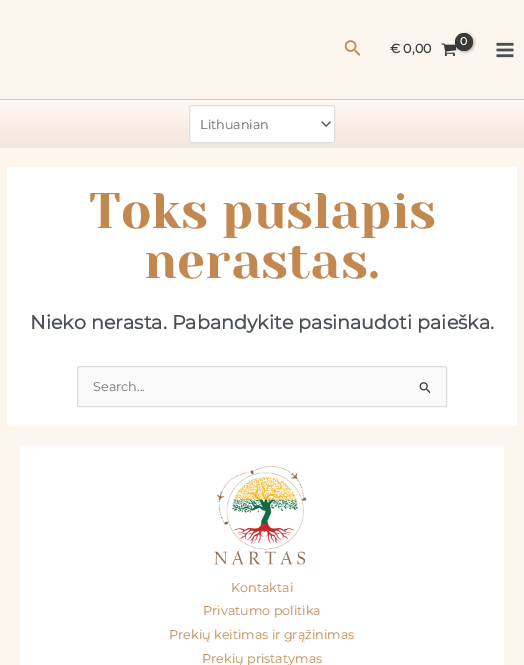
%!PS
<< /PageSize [524 665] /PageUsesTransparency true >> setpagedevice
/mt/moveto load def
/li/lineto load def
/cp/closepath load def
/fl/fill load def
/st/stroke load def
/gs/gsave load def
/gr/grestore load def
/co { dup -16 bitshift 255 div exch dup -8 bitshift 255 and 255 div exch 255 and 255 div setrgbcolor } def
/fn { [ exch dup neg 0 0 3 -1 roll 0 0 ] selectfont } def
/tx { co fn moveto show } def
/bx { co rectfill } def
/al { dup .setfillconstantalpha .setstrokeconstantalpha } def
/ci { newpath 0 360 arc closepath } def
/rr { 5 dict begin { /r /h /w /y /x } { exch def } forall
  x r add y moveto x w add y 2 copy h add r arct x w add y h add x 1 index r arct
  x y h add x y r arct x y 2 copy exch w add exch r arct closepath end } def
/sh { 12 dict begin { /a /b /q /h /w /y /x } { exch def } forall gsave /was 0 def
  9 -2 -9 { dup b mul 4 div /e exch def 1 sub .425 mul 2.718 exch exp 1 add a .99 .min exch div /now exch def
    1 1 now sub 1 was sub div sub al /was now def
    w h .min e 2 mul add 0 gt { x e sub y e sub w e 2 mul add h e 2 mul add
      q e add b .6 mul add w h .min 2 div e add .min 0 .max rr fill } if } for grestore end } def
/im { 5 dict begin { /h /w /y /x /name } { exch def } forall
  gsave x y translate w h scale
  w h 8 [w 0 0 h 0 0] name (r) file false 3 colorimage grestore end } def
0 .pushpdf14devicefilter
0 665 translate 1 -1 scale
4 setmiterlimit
0 0 524 665 16#FCF6EF bx
0 99 524 1 16#CBCBCB bx
(media/1.raw) 344 40 16 16 im
(media/2.raw) 441 43 16 13 im
16#000000 co
456 34 18 18 9 1.5 .3 sh
16#3A3A3A co
464 42 9 ci fl
(media/3.raw) 496 42 18 16 im
gs 0 100 mt 524 100 li 524 148 li 0 148 li cp clip newpath
<< /ShadingType 2 /ColorSpace /DeviceRGB /Coords [262 100 262 148] /Extend [true true] /Function << /FunctionType 2 /Domain [0 1] /C0 [1 .973 .949] /C1 [.949 .906 .863] /N 1 >> >> shfill gr
16#FFFFFF co
189 105 146 38 3 rr fl
(media/4.raw) 321 121 10 6 im
16#DDDDDD co
189.5 105.5 145 37 2.5 rr st
7 167 510 259 16#FFFFFF bx
16#FAFAFA co
77.5 366.5 369 40 1.5 rr gs fl gr
16#DDDDDD co
st
(media/5.raw) 419 382 11 12 im
20 446 484 219 16#FFFFFF bx
(media/6.raw) 214 466 93 99 im
(0) 460 45 /Montserrat-Bold 11 16#FFFFFF tx
(€ 0,00) 390 53 /Montserrat-Bold 12.75 16#3A3A3A tx
(Lithuanian) 200 129 /Montserrat-Thin 12.75 16#666666 tx
(Toks puslapis) 89 228 /YesevaOne-Regular 50 16#C2884F tx
(nerastas.) 144 278 /YesevaOne-Regular 50 16#C2884F tx
(Nieko nerasta. Pabandykite pasinaudoti paieška.) 30 329 /Montserrat-Bold 19.15 16#4B4F58 tx
(Search...) 93 391 /Montserrat-Thin 12.75 16#757575 tx
(Kontaktai) 231 592 /Montserrat-Thin 12.75 16#C2884F tx
(Privatumo politika) 203 615 /Montserrat-Thin 12.75 16#C2884F tx
(Prekių keitimas ir grąžinimas) 169 639 /Montserrat-Thin 12.75 16#C2884F tx
(Prekių pristatymas) 202 663 /Montserrat-Thin 12.75 16#C2884F tx
.poppdf14devicefilter showpage
